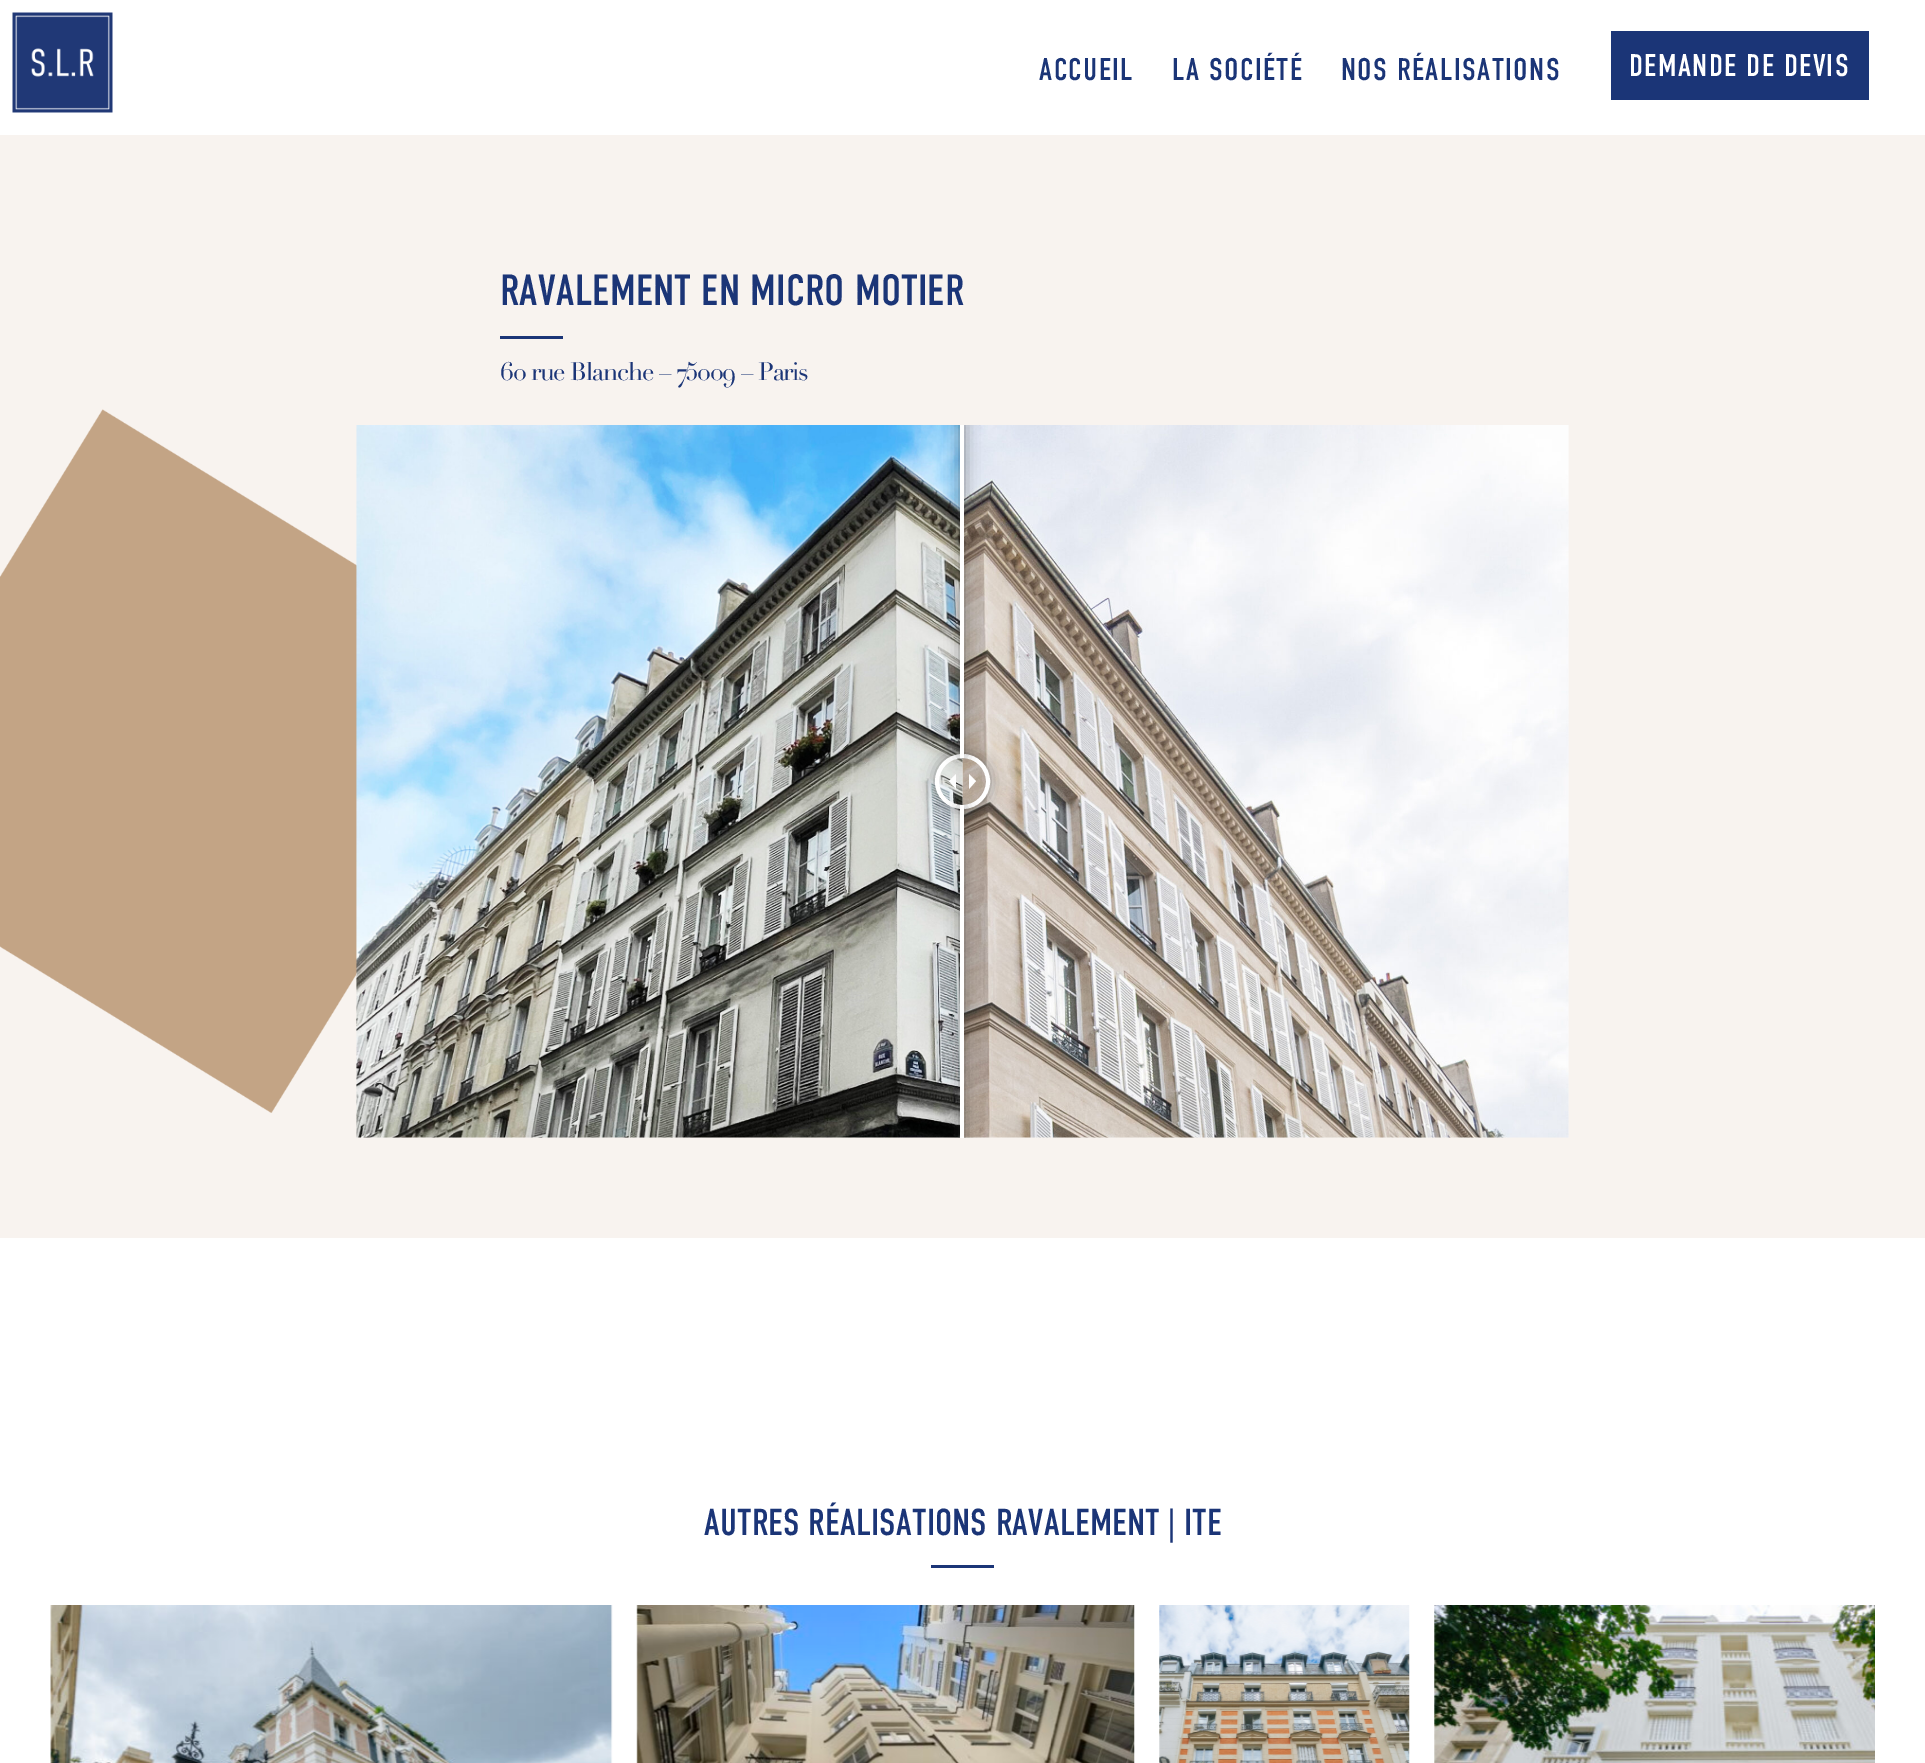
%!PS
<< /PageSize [1925 1763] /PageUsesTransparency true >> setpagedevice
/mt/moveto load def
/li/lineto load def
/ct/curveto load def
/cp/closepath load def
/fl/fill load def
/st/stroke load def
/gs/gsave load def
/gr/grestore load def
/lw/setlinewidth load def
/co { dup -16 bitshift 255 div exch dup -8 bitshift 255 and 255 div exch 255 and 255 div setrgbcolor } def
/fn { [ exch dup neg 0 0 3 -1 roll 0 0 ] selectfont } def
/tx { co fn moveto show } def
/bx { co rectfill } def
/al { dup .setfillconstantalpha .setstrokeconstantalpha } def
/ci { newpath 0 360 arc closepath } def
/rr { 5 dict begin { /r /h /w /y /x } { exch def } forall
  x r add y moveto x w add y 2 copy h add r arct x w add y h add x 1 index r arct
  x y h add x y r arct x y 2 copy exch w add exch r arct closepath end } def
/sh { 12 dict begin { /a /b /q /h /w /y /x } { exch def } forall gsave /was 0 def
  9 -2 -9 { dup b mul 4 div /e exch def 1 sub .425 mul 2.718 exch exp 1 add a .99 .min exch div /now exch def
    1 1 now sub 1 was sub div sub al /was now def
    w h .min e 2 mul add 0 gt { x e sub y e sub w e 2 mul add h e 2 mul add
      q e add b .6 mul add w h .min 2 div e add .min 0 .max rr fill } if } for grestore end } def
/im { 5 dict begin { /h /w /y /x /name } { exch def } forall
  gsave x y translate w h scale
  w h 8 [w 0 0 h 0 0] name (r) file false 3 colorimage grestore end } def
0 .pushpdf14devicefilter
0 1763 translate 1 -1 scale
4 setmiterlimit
0 0 1925 1763 16#FFFFFF bx
(media/1.raw) 12 12 101 101 im
1611 31 258 69 16#1B3577 bx
0 135 1925 1103 16#F8F3EF bx
(media/3.raw) 962 425 607 713 im
(media/4.raw) 0 409 357 704 im
(media/2.raw) 356 425 607 713 im
gs
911 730 mt 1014 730 li 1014 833 li 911 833 li cp 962.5 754 mt 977.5 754 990 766.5 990 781.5 ct 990 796.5 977.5 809 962.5 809 ct 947.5 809 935 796.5 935 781.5 ct 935 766.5 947.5 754 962.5 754 ct cp eoclip newpath
16#333333 co
935 754 55 55 27.5 7.5 .5 sh
gr
16#FFFFFF co
4 lw
962.5 781.5 25.5 ci st
956 774 mt 956 789 li 949 781 li cp 969 789 mt 969 774 li 976 781 li cp fl
gs
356 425 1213 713 rectclip
16#333333 co
960 -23 4 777 0 7.5 .5 sh
gr
960 754 mt 960 758 li 964 758 li 964 -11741 li 964 754 li cp fl
960 425 4 329 16#FFFFFF bx
gs
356 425 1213 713 rectclip
16#333333 co
960 809 4 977 0 7.5 .5 sh
gr
960 805 mt 960 809 li 964 809 li 964 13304 li 964 805 li cp fl
960 809 4 329 16#FFFFFF bx
500 336 63 3 16#1B3577 bx
931 1565 63 3 16#1B3577 bx
(media/5.raw) 50 1605 563 158 im
(media/6.raw) 636 1605 499 158 im
(media/7.raw) 1159 1605 251 158 im
(media/8.raw) 1434 1605 441 158 im
/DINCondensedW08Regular-Regular 31.25 fn
1039 80 mt 1.25 0 (ACCUEIL) ashow
1172 80 mt 1.25 0 (LA SOCIÉTÉ) ashow
1341 80 mt 1.25 0 (NOS RÉALISATIONS) ashow
16#FFFFFF co
1629 76 mt 1.25 0 (DEMANDE DE DEVIS) ashow
(RAVALEMENT EN MICRO MOTIER) 500 305 /DINCondensedW08Regular-Regular 43.75 16#1B3577 tx
/Didot-Regular 25 fn
500 380 mt -1.25 0 (60 rue Blanche – 75009 – Paris) ashow
(AUTRES RÉALISATIONS RAVALEMENT | ITE) 704 1535 /DINCondensedW08Regular-Regular 37.5 16#1B3577 tx
.poppdf14devicefilter showpage
